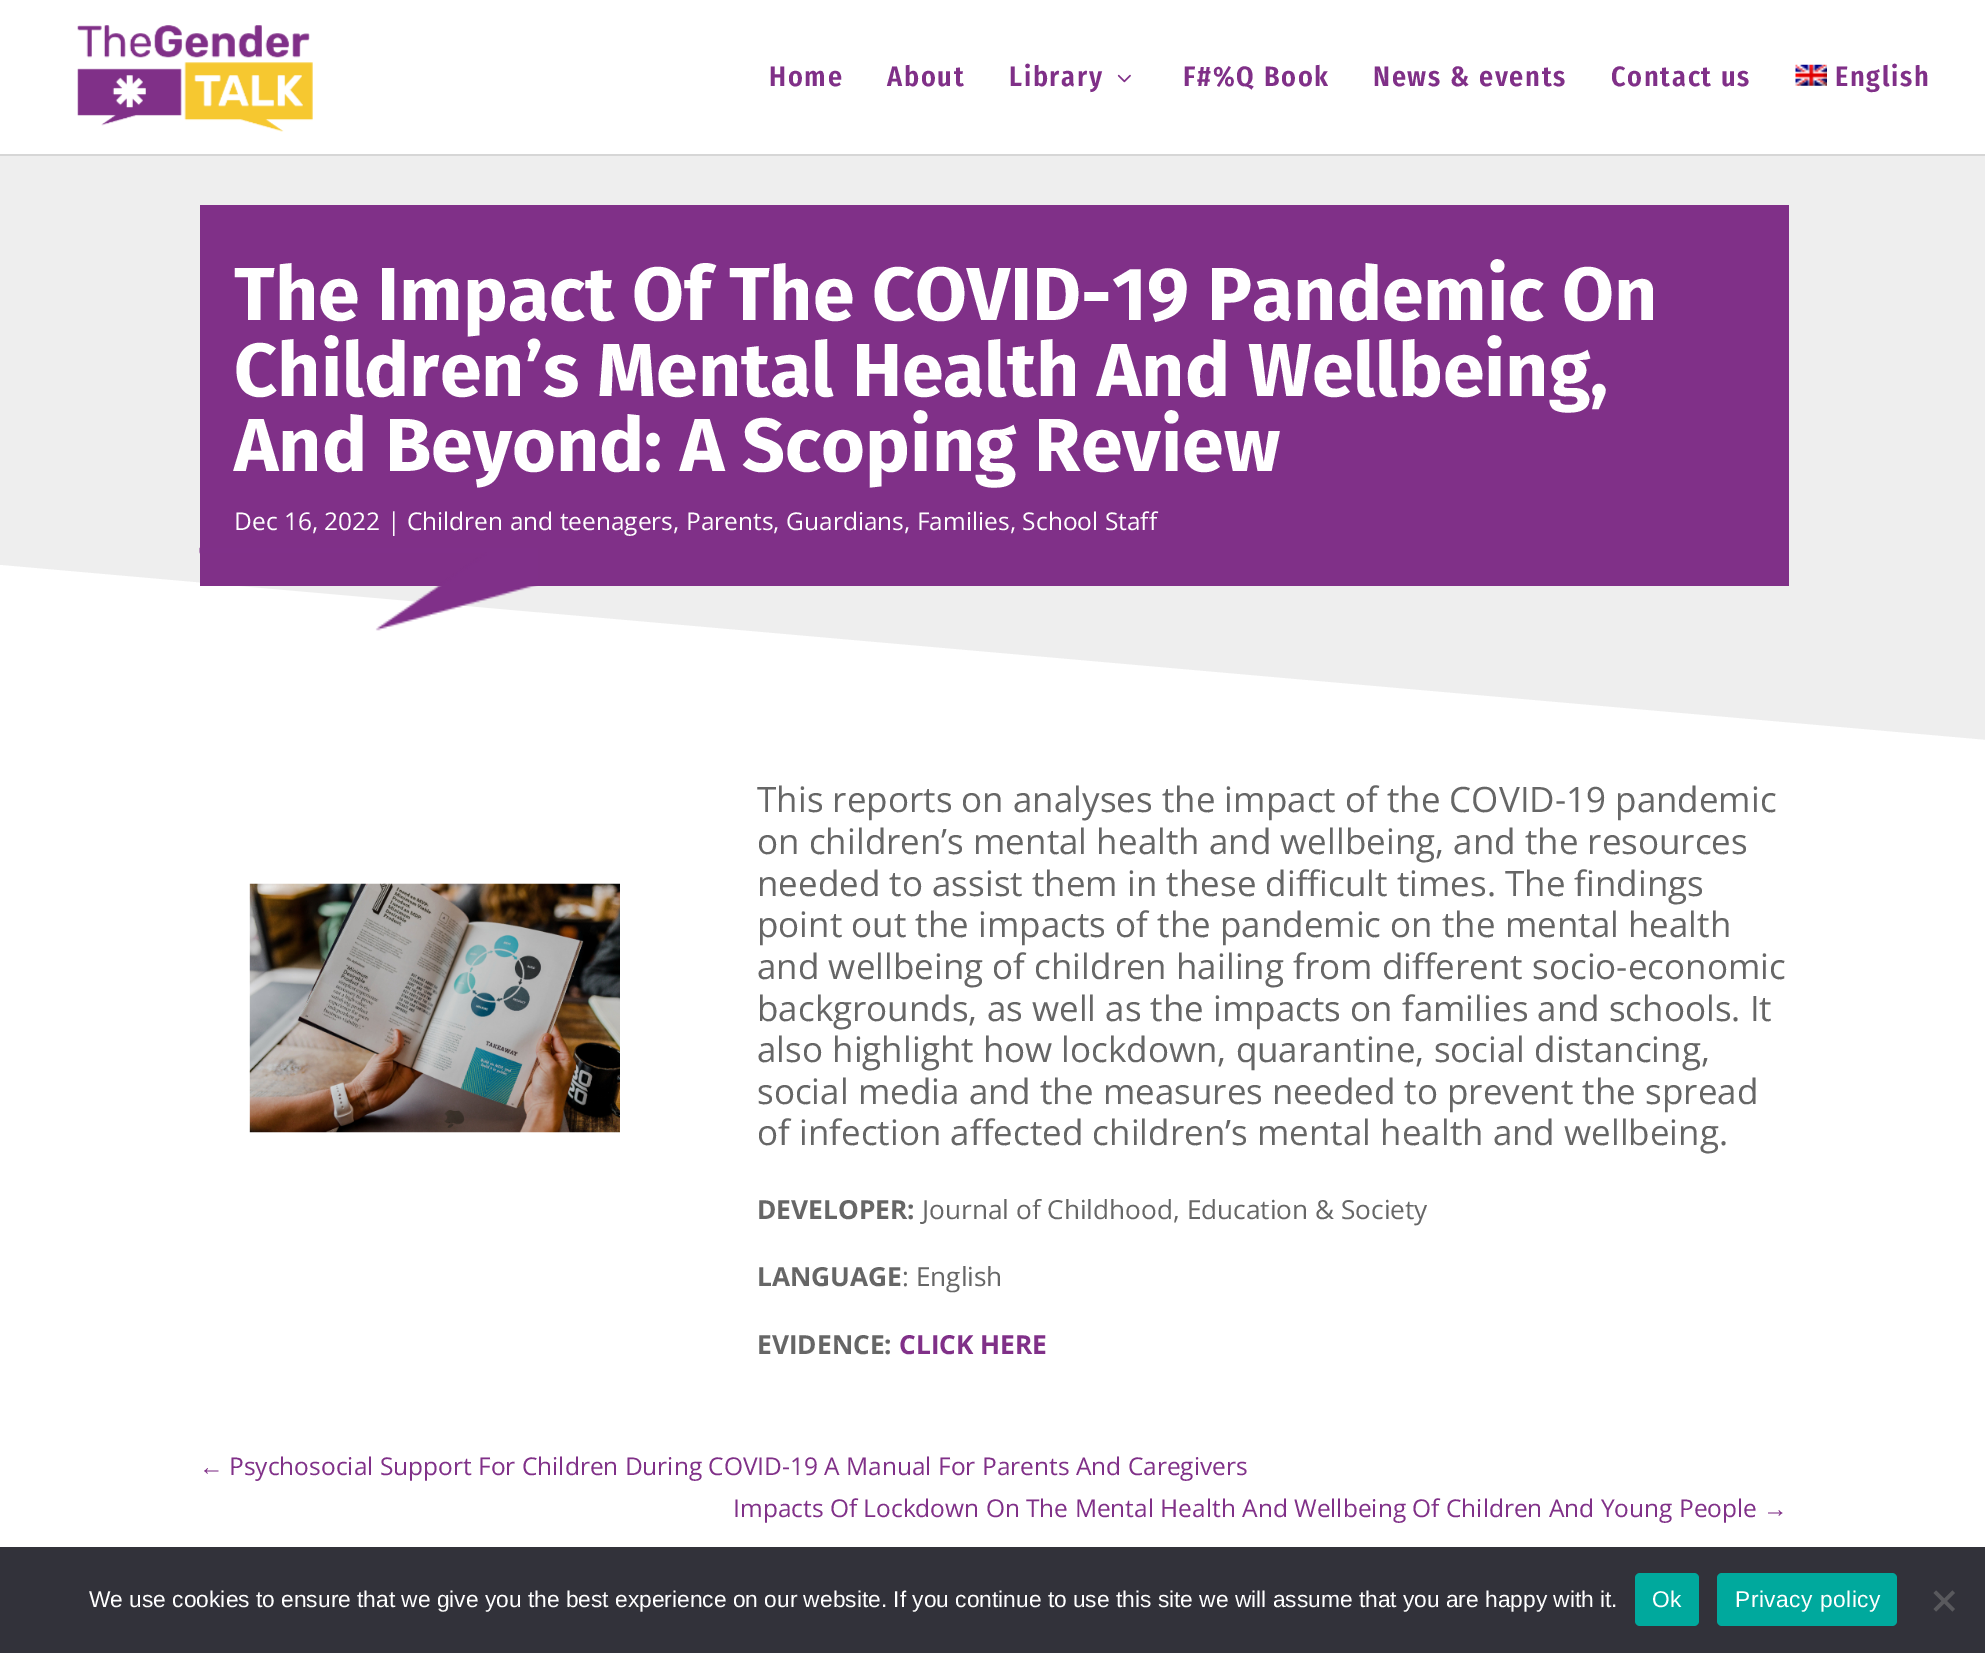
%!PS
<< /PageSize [1985 1653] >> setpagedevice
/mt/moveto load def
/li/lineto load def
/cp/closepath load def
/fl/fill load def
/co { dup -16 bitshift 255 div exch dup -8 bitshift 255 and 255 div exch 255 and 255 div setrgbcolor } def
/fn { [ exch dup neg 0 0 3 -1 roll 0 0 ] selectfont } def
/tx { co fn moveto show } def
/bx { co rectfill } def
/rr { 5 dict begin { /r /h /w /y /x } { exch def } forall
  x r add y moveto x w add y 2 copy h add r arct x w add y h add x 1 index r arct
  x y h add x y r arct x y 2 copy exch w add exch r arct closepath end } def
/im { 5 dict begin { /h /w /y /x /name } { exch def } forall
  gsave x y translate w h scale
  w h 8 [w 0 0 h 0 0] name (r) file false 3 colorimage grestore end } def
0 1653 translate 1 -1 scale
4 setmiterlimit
0 0 1985 1653 16#FFFFFF bx
0 154 1985 2 16#D6D6D6 bx
(media/1.raw) 77 25 236 107 im
(media/2.raw) 1117 74 14 9 im
(media/3.raw) 1795 64 32 22 im
0 156 1985 584 16#EEEEEE bx
16#FFFFFF co
0 565 mt 0 740 li 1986 740 li cp fl
200 205 1589 381 16#803088 bx
(media/4.raw) 199 547 339 84 im
(media/5.raw) 249 883 371 250 im
0 1547 1985 106 16#32323A bx
16#00A99D co
1635 1573 64 53 5 rr fl
1717 1573 180 53 5 rr fl
16#59595D co
1952.5 1590.5 mt 1955 1593 li 1936 1611.5 li 1933.5 1609 li cp fl
1933.5 1593 mt 1936 1590.5 li 1955 1609 li 1952.5 1611.5 li cp fl
/FiraSansCondensed-SemiBold 28 fn
16#803088 co
769 86 mt 1.75 0 (Home) ashow
887 86 mt 1.75 0 (About) ashow
1009 86 mt 1.75 0 (Library) ashow
1183 86 mt 1.75 0 (F#%Q Book) ashow
1373 86 mt 1.75 0 (News & events) ashow
1611 86 mt 1.75 0 (Contact us) ashow
1835 86 mt 1.75 0 (English) ashow
(The Impact Of The COVID-19 Pandemic On) 234 320 /FiraSans-Bold 75.25 16#FFFFFF tx
(Children’s Mental Health And Wellbeing,) 234 396 /FiraSans-Bold 75.25 16#FFFFFF tx
(And Beyond: A Scoping Review) 234 471 /FiraSans-Bold 75.25 16#FFFFFF tx
(Dec 16, 2022 | Children and teenagers, Parents, Guardians, Families, School Staff) 234 530 /OpenSans-Regular 24.5 16#FFFFFF tx
(This reports on analyses the impact of the COVID-19 pandemic) 757 812 /OpenSans-Regular 35 16#666666 tx
(on children’s mental health and wellbeing, and the resources) 757 854 /OpenSans-Regular 35 16#666666 tx
(needed to assist them in these difficult times. The findings) 757 896 /OpenSans-Regular 35 16#666666 tx
(point out the impacts of the pandemic on the mental health) 757 937 /OpenSans-Regular 35 16#666666 tx
(and wellbeing of children hailing from different socio-economic) 757 979 /OpenSans-Regular 35 16#666666 tx
(backgrounds, as well as the impacts on families and schools. It) 757 1021 /OpenSans-Regular 35 16#666666 tx
(also highlight how lockdown, quarantine, social distancing,) 757 1062 /OpenSans-Regular 35 16#666666 tx
(social media and the measures needed to prevent the spread) 757 1104 /OpenSans-Regular 35 16#666666 tx
(of infection affected children’s mental health and wellbeing.) 757 1145 /OpenSans-Regular 35 16#666666 tx
(DEVELOPER:) 757 1219 /OpenSans-Bold 26.25 16#666666 tx
(Journal of Childhood, Education & Society) 922 1219 /OpenSans-Regular 26.25 16#666666 tx
(LANGUAGE) 757 1286 /OpenSans-Bold 26.25 16#666666 tx
(: English) 902 1286 /OpenSans-Regular 26.25 16#666666 tx
(EVIDENCE:) 757 1354 /OpenSans-Bold 26.25 16#666666 tx
(CLICK HERE) 899 1354 /OpenSans-Bold 26.25 16#803088 tx
(←) 199 1475 /LiberationSans-Regular 24.5 16#803088 tx
(Psychosocial Support For Children During COVID-19 A Manual For Parents And Caregivers) 229 1475 /OpenSans-Regular 24.5 16#803088 tx
(Impacts Of Lockdown On The Mental Health And Wellbeing Of Children And Young People) 733 1517 /OpenSans-Regular 24.5 16#803088 tx
(→) 1763 1517 /LiberationSans-Regular 24.5 16#803088 tx
(We use cookies to ensure that we give you the best experience on our website. If you continue to use this site we will assume that you are happy with it.) 89 1607 /LiberationSans-Regular 22.75 16#FFFFFF tx
1652 1607 mt .5 0 (Ok) ashow
1735 1607 mt .5 0 (Privacy policy) ashow
showpage
